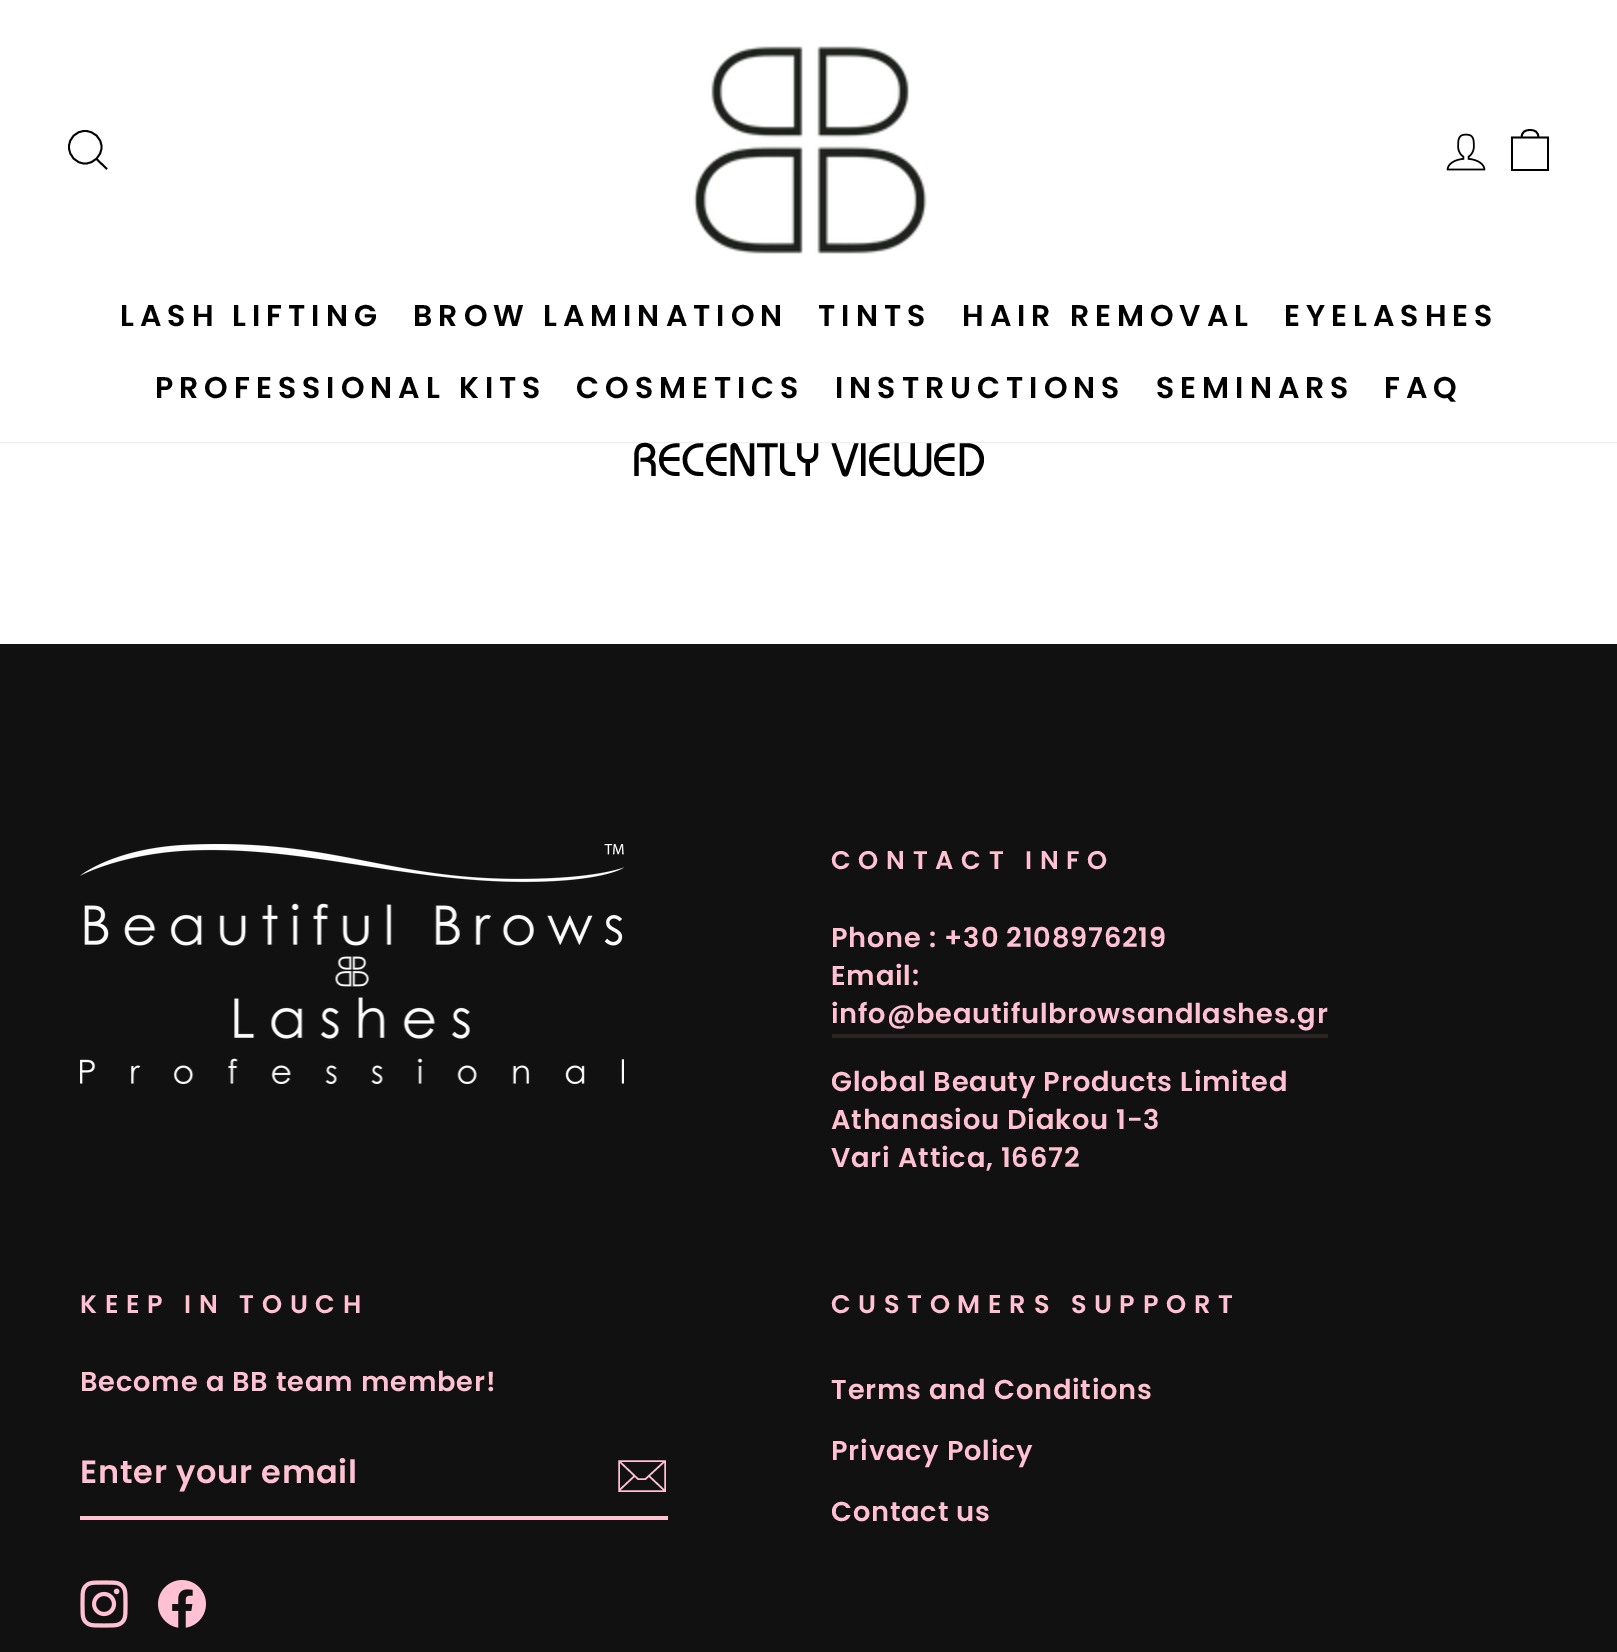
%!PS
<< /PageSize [1617 1652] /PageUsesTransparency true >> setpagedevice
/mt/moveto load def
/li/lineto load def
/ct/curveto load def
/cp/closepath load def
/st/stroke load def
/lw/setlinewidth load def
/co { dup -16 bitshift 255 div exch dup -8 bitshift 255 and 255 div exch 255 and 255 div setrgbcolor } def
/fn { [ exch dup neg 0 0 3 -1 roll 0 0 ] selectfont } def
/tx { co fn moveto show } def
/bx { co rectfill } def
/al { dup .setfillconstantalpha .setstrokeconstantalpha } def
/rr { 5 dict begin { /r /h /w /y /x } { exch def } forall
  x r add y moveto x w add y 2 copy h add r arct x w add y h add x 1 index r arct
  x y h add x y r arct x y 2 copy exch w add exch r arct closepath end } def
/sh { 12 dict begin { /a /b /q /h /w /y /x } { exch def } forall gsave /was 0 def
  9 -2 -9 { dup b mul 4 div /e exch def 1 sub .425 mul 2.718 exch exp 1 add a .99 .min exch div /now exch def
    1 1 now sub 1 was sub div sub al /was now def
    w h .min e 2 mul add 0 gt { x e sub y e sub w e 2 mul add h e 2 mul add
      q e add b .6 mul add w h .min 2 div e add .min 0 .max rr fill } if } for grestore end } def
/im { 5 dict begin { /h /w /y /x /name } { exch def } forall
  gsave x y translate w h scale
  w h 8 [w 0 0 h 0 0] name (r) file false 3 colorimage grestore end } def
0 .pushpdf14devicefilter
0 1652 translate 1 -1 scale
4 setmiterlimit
0 0 1617 1652 16#FFFFFF bx
16#000000 co
0 0 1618 442 0 1 .2 sh
0 0 1617 442 16#FFFFFF bx
16#000000 co
1.8 lw
101.5 147 mt 101.5 156 94 163.5 85 163.5 ct 76 163.5 69 156 69 147 ct 69 138 76 131 85 131 ct 94 131 101.5 138 101.5 147 ct cp 107 169 mt 96.5 159 li st
(media/1.raw) 693 46 234 208 im
(media/2.raw) 1446 133 40 38 im
1512 137.5 mt 1548 137.5 li 1548 170 li 1512 170 li cp 1521.5 138 mt 1521.5 131.5 1525.5 130 1530 130 ct 1534.5 130 1538.5 131.5 1538.5 138 ct st
0 644 1617 1008 16#111111 bx
(media/3.raw) 80 844 544 240 im
832 1034 496 4 16#292324 bx
80 1516 588 4 16#FFC1D3 bx
1.5 lw
665 1491 mt 619 1491 li 619 1461 li 665 1461 li cp 619 1461 mt 638 1479 li 645.5 1479 li 665 1461 li 634.5 1476 mt 619 1490.5 li 665 1491 mt 649 1476 li st
(media/4.raw) 80 1580 48 48 im
(media/5.raw) 158 1580 48 48 im
/Poppins-SemiBold 30 fn
16#000000 co
120 326 mt 6 0 (LASH LIFTING) ashow
413 326 mt 6 0 (BROW LAMINATION) ashow
818 326 mt 6 0 (TINTS) ashow
962 326 mt 6 0 (HAIR REMOVAL) ashow
1284 326 mt 6 0 (EYELASHES) ashow
155 398 mt 6 0 (PROFESSIONAL KITS) ashow
576 398 mt 6 0 (COSMETICS) ashow
835 398 mt 6 0 (INSTRUCTIONS) ashow
1156 398 mt 6 0 (SEMINARS) ashow
1384 398 mt 6 0 (FAQ) ashow
(RECENTLY VIEWED) 632 476 /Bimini-Regular 46.75 16#000000 tx
/Poppins-SemiBold 25.6 fn
16#FFC1D3 co
831 869 mt 7.7 0 (CONTACT INFO) ashow
/Poppins-SemiBold 27.25 fn
831 947 mt .8 0 (Phone : +30 2108976219) ashow
831 985 mt .8 0 (Email:) ashow
831 1023 mt .8 0 (info@beautifulbrowsandlashes.gr) ashow
831 1091 mt .8 0 (Global Beauty Products Limited) ashow
831 1129 mt .8 0 (Athanasiou Diakou 1-3) ashow
831 1167 mt .8 0 (Vari Attica, 16672) ashow
/Poppins-SemiBold 25.6 fn
80 1313 mt 7.7 0 (KEEP IN TOUCH) ashow
/Poppins-SemiBold 27.25 fn
80 1391 mt .8 0 (Become a BB team member!) ashow
/Poppins-SemiBold 32 fn
80 1483 mt .8 0 (Enter your email) ashow
/Poppins-SemiBold 25.6 fn
831 1313 mt 7.7 0 (CUSTOMERS SUPPORT) ashow
/Poppins-SemiBold 27.25 fn
831 1399 mt .8 0 (Terms and Conditions) ashow
831 1460 mt .8 0 (Privacy Policy) ashow
831 1521 mt .8 0 (Contact us) ashow
.poppdf14devicefilter showpage
